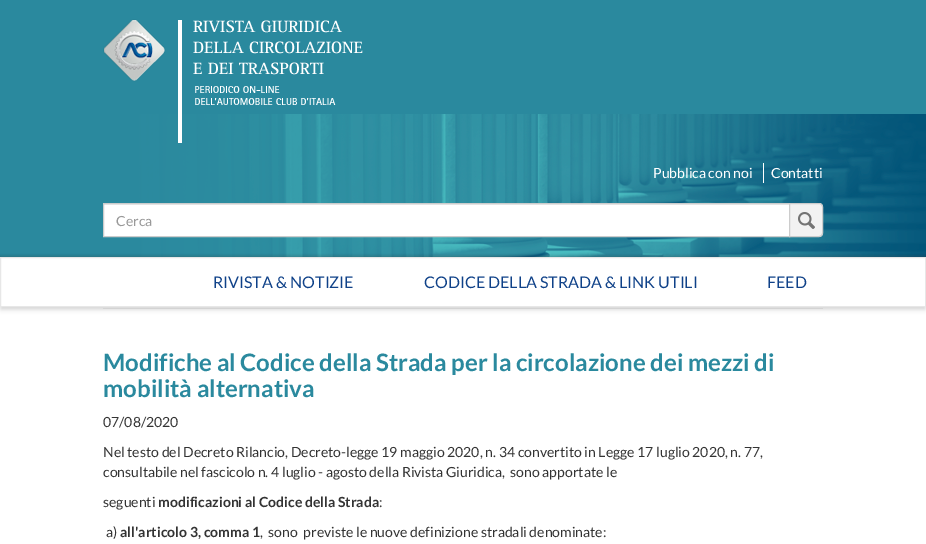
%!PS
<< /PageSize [926 544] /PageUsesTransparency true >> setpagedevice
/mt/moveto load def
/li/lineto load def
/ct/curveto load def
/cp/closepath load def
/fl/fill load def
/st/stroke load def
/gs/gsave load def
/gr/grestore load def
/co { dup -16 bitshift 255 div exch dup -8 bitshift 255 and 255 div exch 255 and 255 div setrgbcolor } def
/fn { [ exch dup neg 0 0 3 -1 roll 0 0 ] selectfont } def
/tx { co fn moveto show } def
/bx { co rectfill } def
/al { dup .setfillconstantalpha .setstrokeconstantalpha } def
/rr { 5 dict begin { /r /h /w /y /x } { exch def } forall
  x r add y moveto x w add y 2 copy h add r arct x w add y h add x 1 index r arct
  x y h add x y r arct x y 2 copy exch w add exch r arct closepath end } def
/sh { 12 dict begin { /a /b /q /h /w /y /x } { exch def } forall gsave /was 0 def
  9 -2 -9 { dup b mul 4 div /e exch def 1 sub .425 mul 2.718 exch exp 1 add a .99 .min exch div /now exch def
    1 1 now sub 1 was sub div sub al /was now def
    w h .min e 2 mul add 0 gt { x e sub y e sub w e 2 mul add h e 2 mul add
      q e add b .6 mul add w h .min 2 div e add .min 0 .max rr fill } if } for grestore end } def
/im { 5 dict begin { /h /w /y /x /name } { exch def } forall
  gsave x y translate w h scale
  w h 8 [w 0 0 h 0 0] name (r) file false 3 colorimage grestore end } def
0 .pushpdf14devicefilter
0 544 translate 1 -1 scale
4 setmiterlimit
0 0 926 544 16#FFFFFF bx
0 0 926 114 16#2A899E bx
(media/1.raw) 0 114 926 143 im
(media/2.raw) 103 19 260 124 im
763 163 1 20 16#FFFFFF bx
104 205 685 31 16#FFFFFF bx
104 204 685 1 16#ECECEC bx
16#CCCCCC co
103.5 203.5 686 33 rectstroke
16#F2F2F2 co
789 203 mt 819 203 li 821 203 823 205 823 207 ct 823 233 li 823 235 821 237 819 237 ct 789 237 li cp fl
(media/3.raw) 798 212 17 17 im
16#CCCCCC co
789.5 203.5 mt 819 203.5 li 821 203.5 822.5 205 822.5 207 ct 822.5 233 li 822.5 235 821 236.5 819 236.5 ct 789.5 236.5 li cp st
103 308 720 1 16#DFDFDF bx
gs
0 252 mt 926 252 li 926 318 li 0 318 li cp 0 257 mt 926 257 li 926 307 li 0 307 li cp eoclip newpath
16#CCCCCC co
1 261 924 48 0 2.5 1 sh
gr
16#E7E7E7 co
.5 257.5 925 49 rectstroke
(Pubblica con noi) 653 178 /Lato-Regular 14 16#FFFFFF tx
(Contatti) 771 178 /Lato-Regular 14 16#FFFFFF tx
(Cerca) 116 226 /Lato-Regular 14 16#999999 tx
(RIVISTA & NOTIZIE) 213 288 /Lato-Regular 16 16#0F4188 tx
(CODICE DELLA STRADA & LINK UTILI) 424 288 /Lato-Regular 16 16#0F4188 tx
(FEED) 767 288 /Lato-Regular 16 16#0F4188 tx
(Modifiche al Codice della Strada per la circolazione dei mezzi di) 103 371 /Lato-Bold 24 16#2A899E tx
(mobilità alternativa) 103 397 /Lato-Bold 24 16#2A899E tx
(07/08/2020) 103 427 /Lato-Regular 14 16#333333 tx
(Nel testo del Decreto Rilancio, Decreto-legge 19 maggio 2020, n. 34 convertito in Legge 17 luglio 2020, n. 77,) 103 457 /Lato-Regular 14 16#333333 tx
(consultabile nel fascicolo n. 4 luglio - agosto della Rivista Giuridica,  sono apportate le) 103 477 /Lato-Regular 14 16#333333 tx
(seguenti) 103 507 /Lato-Regular 14 16#333333 tx
(modificazioni al Codice della Strada) 158 507 /Lato-Bold 14 16#333333 tx
(:) 379 507 /Lato-Regular 14 16#333333 tx
(a\)) 106 537 /Lato-Regular 14 16#333333 tx
(all'articolo 3, comma 1) 120 537 /Lato-Bold 14 16#333333 tx
(,  sono  previste le nuove definizione stradali denominate:) 260 537 /Lato-Regular 14 16#333333 tx
.poppdf14devicefilter showpage
